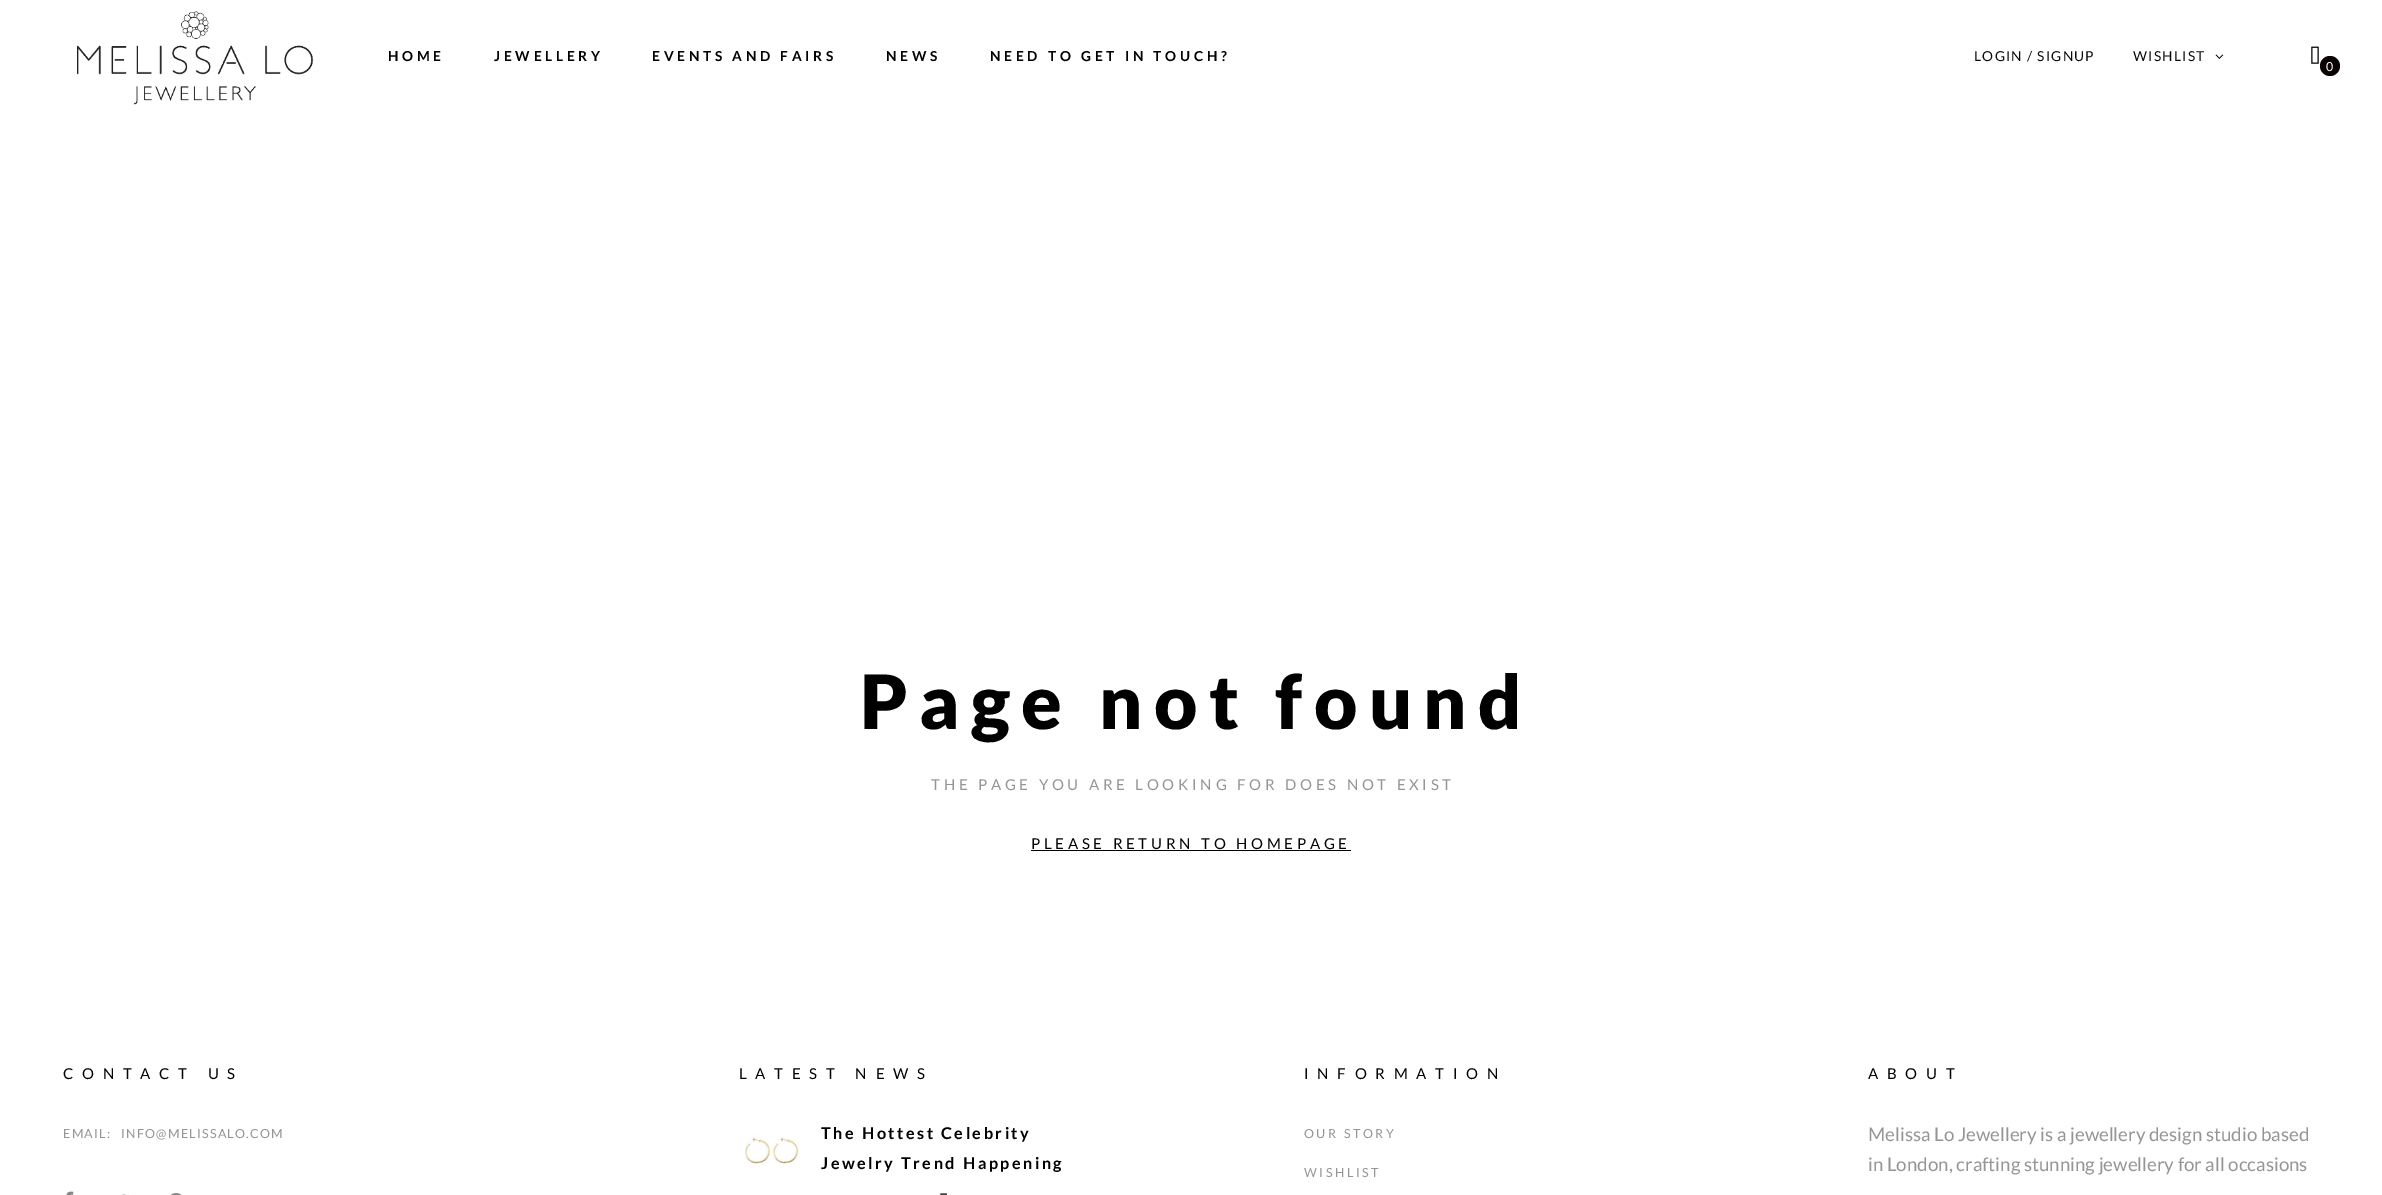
%!PS
<< /PageSize [2382 1195] >> setpagedevice
/mt/moveto load def
/fl/fill load def
/co { dup -16 bitshift 255 div exch dup -8 bitshift 255 and 255 div exch 255 and 255 div setrgbcolor } def
/fn { [ exch dup neg 0 0 3 -1 roll 0 0 ] selectfont } def
/tx { co fn moveto show } def
/bx { co rectfill } def
/ci { newpath 0 360 arc closepath } def
/im { 5 dict begin { /h /w /y /x /name } { exch def } forall
  gsave x y translate w h scale
  w h 8 [w 0 0 h 0 0] name (r) file false 3 colorimage grestore end } def
0 1195 translate 1 -1 scale
4 setmiterlimit
0 0 2382 1195 16#FFFFFF bx
(media/1.raw) 77 11 237 94 im
(media/2.raw) 2215 54 9 5 im
(media/3.raw) 2311 46 8 18 im
16#0A0101 co
2330 66 10 ci fl
1031 850 320 1 16#000000 bx
(media/4.raw) 66 1191 8 4 im
(media/5.raw) 122 1194 7 1 im
(media/6.raw) 170 1193 12 2 im
(media/7.raw) 745 1134 55 30 im
/Lato-Bold 13.75 fn
388 61 mt 3.75 0 (HOME) ashow
494 61 mt 3.75 0 (JEWELLERY) ashow
652 61 mt 3.75 0 (EVENTS AND FAIRS) ashow
886 61 mt 3.75 0 (NEWS) ashow
990 61 mt 3.75 0 (NEED TO GET IN TOUCH?) ashow
/Lato-Regular 13.75 fn
16#0A0A0A co
1974 61 mt 1.25 0 (LOGIN / SIGNUP) ashow
2133 61 mt 1.25 0 (WISHLIST) ashow
(0) 2326 71 /Lato-Regular 12.5 16#FFFFFF tx
/Lato-Black 75 fn
16#000000 co
860 729 mt 11.25 0 (Page not found) ashow
/Lato-Regular 15 fn
16#959595 co
931 790 mt 3.75 0 (THE PAGE YOU ARE LOOKING FOR DOES NOT EXIST) ashow
16#000000 co
1031 849 mt 3.75 0 (PLEASE RETURN TO HOMEPAGE) ashow
63 1079 mt 8.75 0 (CONTACT US) ashow
/Lato-Regular 12.5 fn
16#959595 co
63 1138 mt 1.25 0 (EMAIL:) ashow
121 1138 mt 1.25 0 (INFO@MELISSALO.COM) ashow
/Lato-Regular 15 fn
16#000000 co
739 1079 mt 8.75 0 (LATEST NEWS) ashow
/Lato-Bold 16.25 fn
821 1139 mt 2.5 0 (The Hottest Celebrity) ashow
821 1169 mt 2.5 0 (Jewelry Trend Happening) ashow
939 1199 mt 2.5 0 (–) ashow
/Lato-Regular 15 fn
1304 1079 mt 8.75 0 (INFORMATION) ashow
/Lato-Regular 12.5 fn
16#959595 co
1304 1138 mt 2.5 0 (OUR STORY) ashow
1304 1177 mt 2.5 0 (WISHLIST) ashow
/Lato-Regular 15 fn
16#000000 co
1868 1079 mt 8.75 0 (ABOUT) ashow
(Melissa Lo Jewellery is a jewellery design studio based) 1868 1141 /Lato-Regular 18.75 16#959595 tx
(in London, crafting stunning jewellery for all occasions) 1868 1171 /Lato-Regular 18.75 16#959595 tx
showpage
